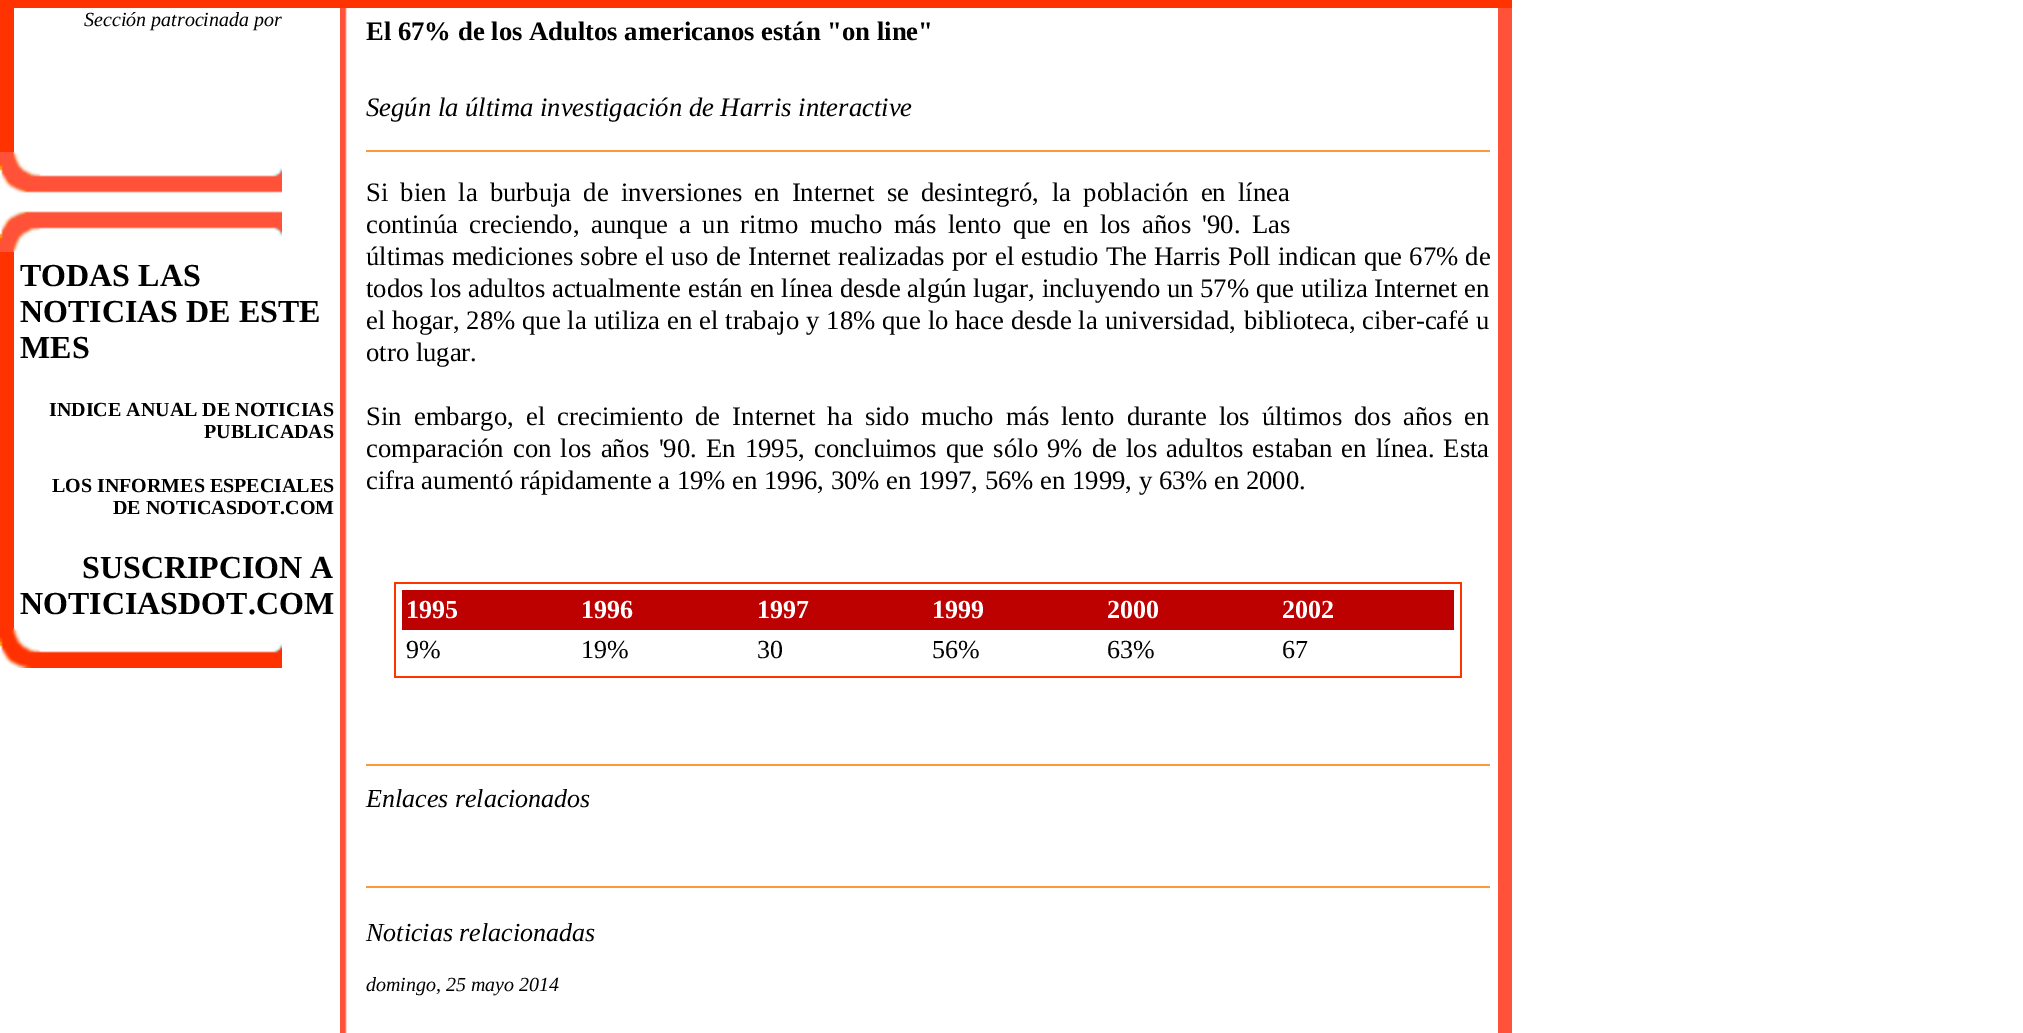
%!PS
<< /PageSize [2023 1033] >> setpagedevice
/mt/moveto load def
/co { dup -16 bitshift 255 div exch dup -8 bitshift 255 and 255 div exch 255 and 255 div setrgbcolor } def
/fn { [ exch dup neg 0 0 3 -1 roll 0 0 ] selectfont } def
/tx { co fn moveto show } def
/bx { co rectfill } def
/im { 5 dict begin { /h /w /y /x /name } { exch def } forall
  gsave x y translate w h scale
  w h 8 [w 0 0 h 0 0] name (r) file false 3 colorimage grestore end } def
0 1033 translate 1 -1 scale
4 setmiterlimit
0 0 2023 1033 16#FFFFFF bx
0 0 1512 8 16#FF3300 bx
0 8 14 144 16#FF3300 bx
(media/1.raw) 0 152 282 100 im
0 252 14 376 16#FF3300 bx
(media/2.raw) 0 628 282 40 im
(media/3.raw) 340 8 7 1025 im
366 150 1124 2 16#FF9933 bx
394 582 1068 2 16#FF3300 bx
1460 582 2 96 16#FF3300 bx
394 676 1068 2 16#FF3300 bx
394 582 2 96 16#FF3300 bx
402 590 1052 40 16#BD0000 bx
366 764 1124 2 16#FF9933 bx
366 886 1124 2 16#FF9933 bx
1498 8 14 1025 16#FF5239 bx
(Sección patrocinada por) 84 26 /LiberationSerif-Italic 20 16#000000 tx
(TODAS LAS) 20 286 /LiberationSerif-Bold 32 16#000000 tx
(NOTICIAS DE ESTE) 20 322 /LiberationSerif-Bold 32 16#000000 tx
(MES) 20 358 /LiberationSerif-Bold 32 16#000000 tx
(INDICE ANUAL DE NOTICIAS) 49 416 /LiberationSerif-Bold 20 16#000000 tx
(PUBLICADAS) 204 438 /LiberationSerif-Bold 20 16#000000 tx
(LOS INFORMES ESPECIALES) 52 492 /LiberationSerif-Bold 20 16#000000 tx
(DE NOTICASDOT.COM) 113 514 /LiberationSerif-Bold 20 16#000000 tx
(SUSCRIPCION A) 82 578 /LiberationSerif-Bold 32 16#000000 tx
(NOTICIASDOT.COM) 20 614 /LiberationSerif-Bold 32 16#000000 tx
(El 67% de los Adultos americanos están "on line") 366 40 /LiberationSerif-Bold 26.65 16#000000 tx
(Según la última investigación de Harris interactive) 366 116 /LiberationSerif-Italic 26.65 16#000000 tx
/LiberationSerif-Regular 26.65 fn
366 201 mt 5.5 0 32 (Si bien la burbuja de inversiones en Internet se desintegró,) widthshow
1052 201 mt 5.5 0 32 (la población en línea) widthshow
366 233 mt 4.75 0 32 (continúa creciendo, aunque a un ritmo mucho más lento que) widthshow
1063 233 mt 4.75 0 32 (en los años '90. Las) widthshow
366 265 mt .5 0 32 (últimas mediciones sobre el uso de Internet realizadas por) widthshow
995 265 mt .5 0 32 (el estudio The Harris Poll indican que 67% de) widthshow
(todos los adultos actualmente) 366 297 /LiberationSerif-Regular 26.65 16#000000 tx
688 297 mt .1 0 32 (están en línea desde algún lugar, incluyendo un 57% que utiliza Internet en) widthshow
(el) 366 329 /LiberationSerif-Regular 26.65 16#000000 tx
392 329 mt .25 0 32 (hogar, 28% que la utiliza en el trabajo y 18% que lo hace desde la universidad,) widthshow
(biblioteca, ciber-café u) 1244 329 /LiberationSerif-Regular 26.65 16#000000 tx
(otro lugar.) 366 361 /LiberationSerif-Regular 26.65 16#000000 tx
366 425 mt 5.5 0 32 (Sin embargo, el crecimiento de Internet ha sido mucho más lento durante los) widthshow
1262 425 mt 5.5 0 32 (últimos dos años en) widthshow
366 457 mt 2.5 0 32 (comparación con los años '90. En 1995, concluimos que sólo) widthshow
1047 457 mt 2.5 0 32 (9% de los adultos estaban en línea. Esta) widthshow
(cifra aumentó rápidamente a 19% en 1996, 30% en 1997, 56% en 1999, y 63% en 2000.) 366 489 /LiberationSerif-Regular 26.65 16#000000 tx
(1995) 406 618 /LiberationSerif-Bold 26 16#FFFFFF tx
(1996) 581 618 /LiberationSerif-Bold 26 16#FFFFFF tx
(1997) 757 618 /LiberationSerif-Bold 26 16#FFFFFF tx
(1999) 932 618 /LiberationSerif-Bold 26 16#FFFFFF tx
(2000) 1107 618 /LiberationSerif-Bold 26 16#FFFFFF tx
(2002) 1282 618 /LiberationSerif-Bold 26 16#FFFFFF tx
(9%) 406 658 /LiberationSerif-Regular 26 16#000000 tx
(19%) 581 658 /LiberationSerif-Regular 26 16#000000 tx
(30) 757 658 /LiberationSerif-Regular 26 16#000000 tx
(56%) 932 658 /LiberationSerif-Regular 26 16#000000 tx
(63%) 1107 658 /LiberationSerif-Regular 26 16#000000 tx
(67) 1282 658 /LiberationSerif-Regular 26 16#000000 tx
(Enlaces relacionados) 366 807 /LiberationSerif-Italic 26 16#000000 tx
(Noticias relacionadas) 366 941 /LiberationSerif-Italic 26 16#000000 tx
(domingo, 25 mayo 2014) 366 991 /LiberationSerif-Italic 20 16#000000 tx
showpage
